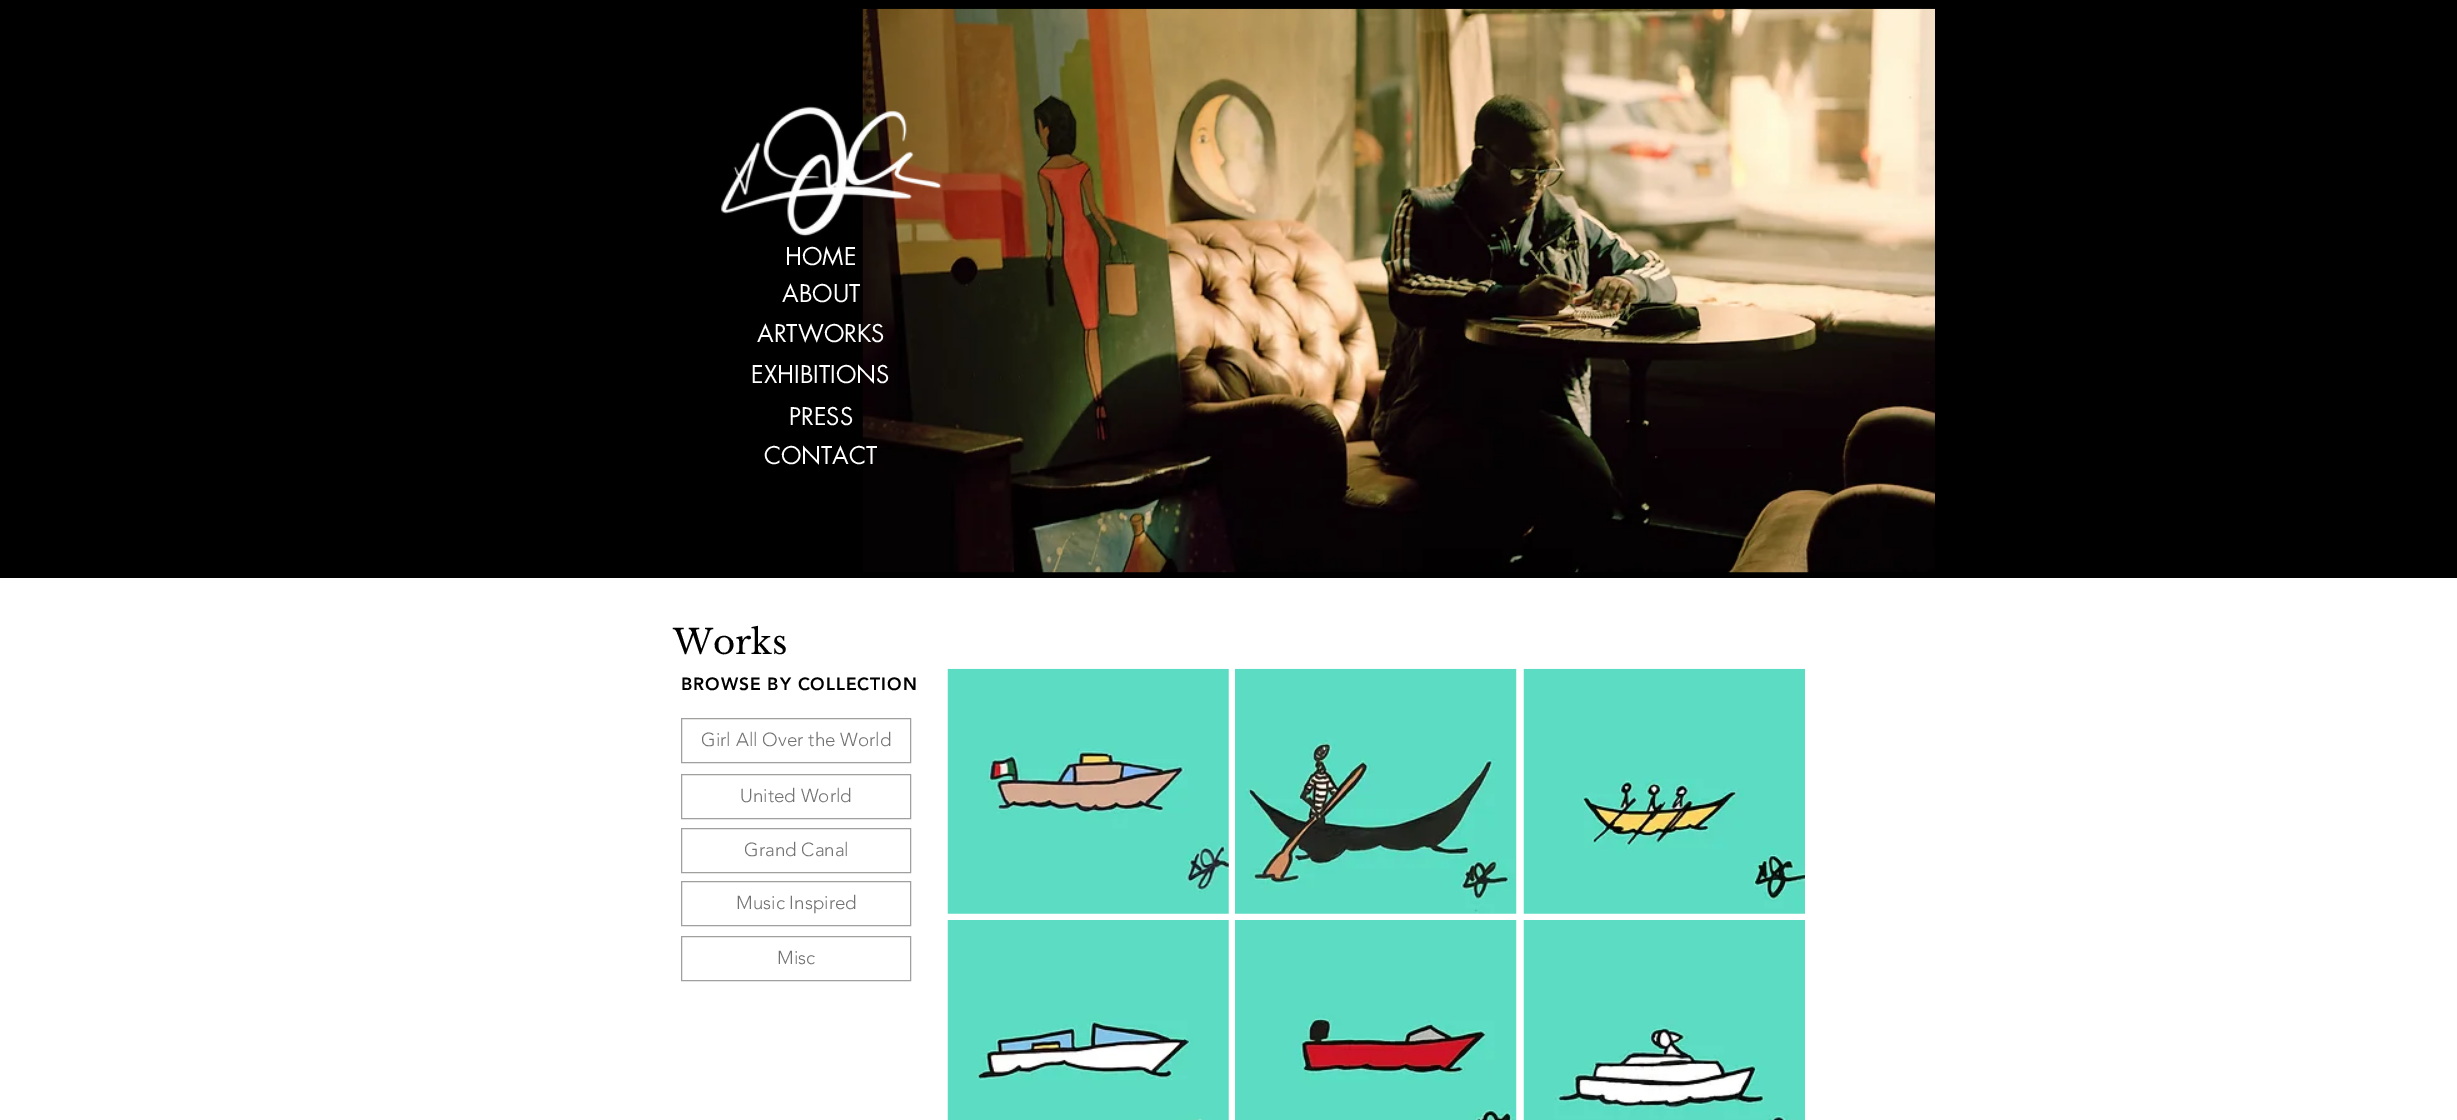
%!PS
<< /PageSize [2457 1120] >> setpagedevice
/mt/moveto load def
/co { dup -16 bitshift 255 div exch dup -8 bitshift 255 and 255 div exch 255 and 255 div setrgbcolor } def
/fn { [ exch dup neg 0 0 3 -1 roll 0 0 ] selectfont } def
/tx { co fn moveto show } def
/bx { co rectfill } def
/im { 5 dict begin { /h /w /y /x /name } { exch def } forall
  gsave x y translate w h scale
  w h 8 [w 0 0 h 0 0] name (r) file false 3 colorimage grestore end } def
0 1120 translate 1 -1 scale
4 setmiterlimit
0 0 2457 1120 16#FFFFFF bx
0 0 2457 578 16#000000 bx
(media/2.raw) 862 8 1073 565 im
(media/1.raw) 721 106 221 131 im
(media/3.raw) 947 668 282 246 im
(media/4.raw) 1235 668 282 246 im
(media/5.raw) 1523 668 282 246 im
(media/6.raw) 947 920 282 200 im
(media/7.raw) 1235 920 282 200 im
(media/8.raw) 1523 920 282 200 im
16#A0A09F co
681.5 718.5 229 44 rectstroke
681.5 774.5 229 44 rectstroke
681.5 828.5 229 44 rectstroke
681.5 881.5 229 44 rectstroke
681.5 936.5 229 44 rectstroke
(HOME) 785 265 /futura-Regular 23.75 16#FFFFFF tx
(ABOUT) 782 302 /futura-Regular 23.75 16#FFFFFF tx
(ARTWORKS) 757 342 /futura-Regular 23.75 16#FFFFFF tx
(EXHIBITIONS) 751 383 /futura-Regular 23.75 16#FFFFFF tx
(PRESS) 789 425 /futura-Regular 23.75 16#FFFFFF tx
(CONTACT) 764 464 /futura-Regular 23.75 16#FFFFFF tx
(Works) 673 654 /LibreBaskerville-Regular 34 16#000000 tx
/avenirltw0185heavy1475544-Black 17.5 fn
681 690 mt .9 0 (BROWSE BY COLLECTION) ashow
(Girl All Over the World) 701 746 /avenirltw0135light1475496-Light 18.75 16#727272 tx
(United World) 740 802 /avenirltw0135light1475496-Light 18.75 16#727272 tx
(Grand Canal) 744 856 /avenirltw0135light1475496-Light 18.75 16#727272 tx
(Music Inspired) 736 909 /avenirltw0135light1475496-Light 18.75 16#727272 tx
(Misc) 777 964 /avenirltw0135light1475496-Light 18.75 16#727272 tx
showpage
